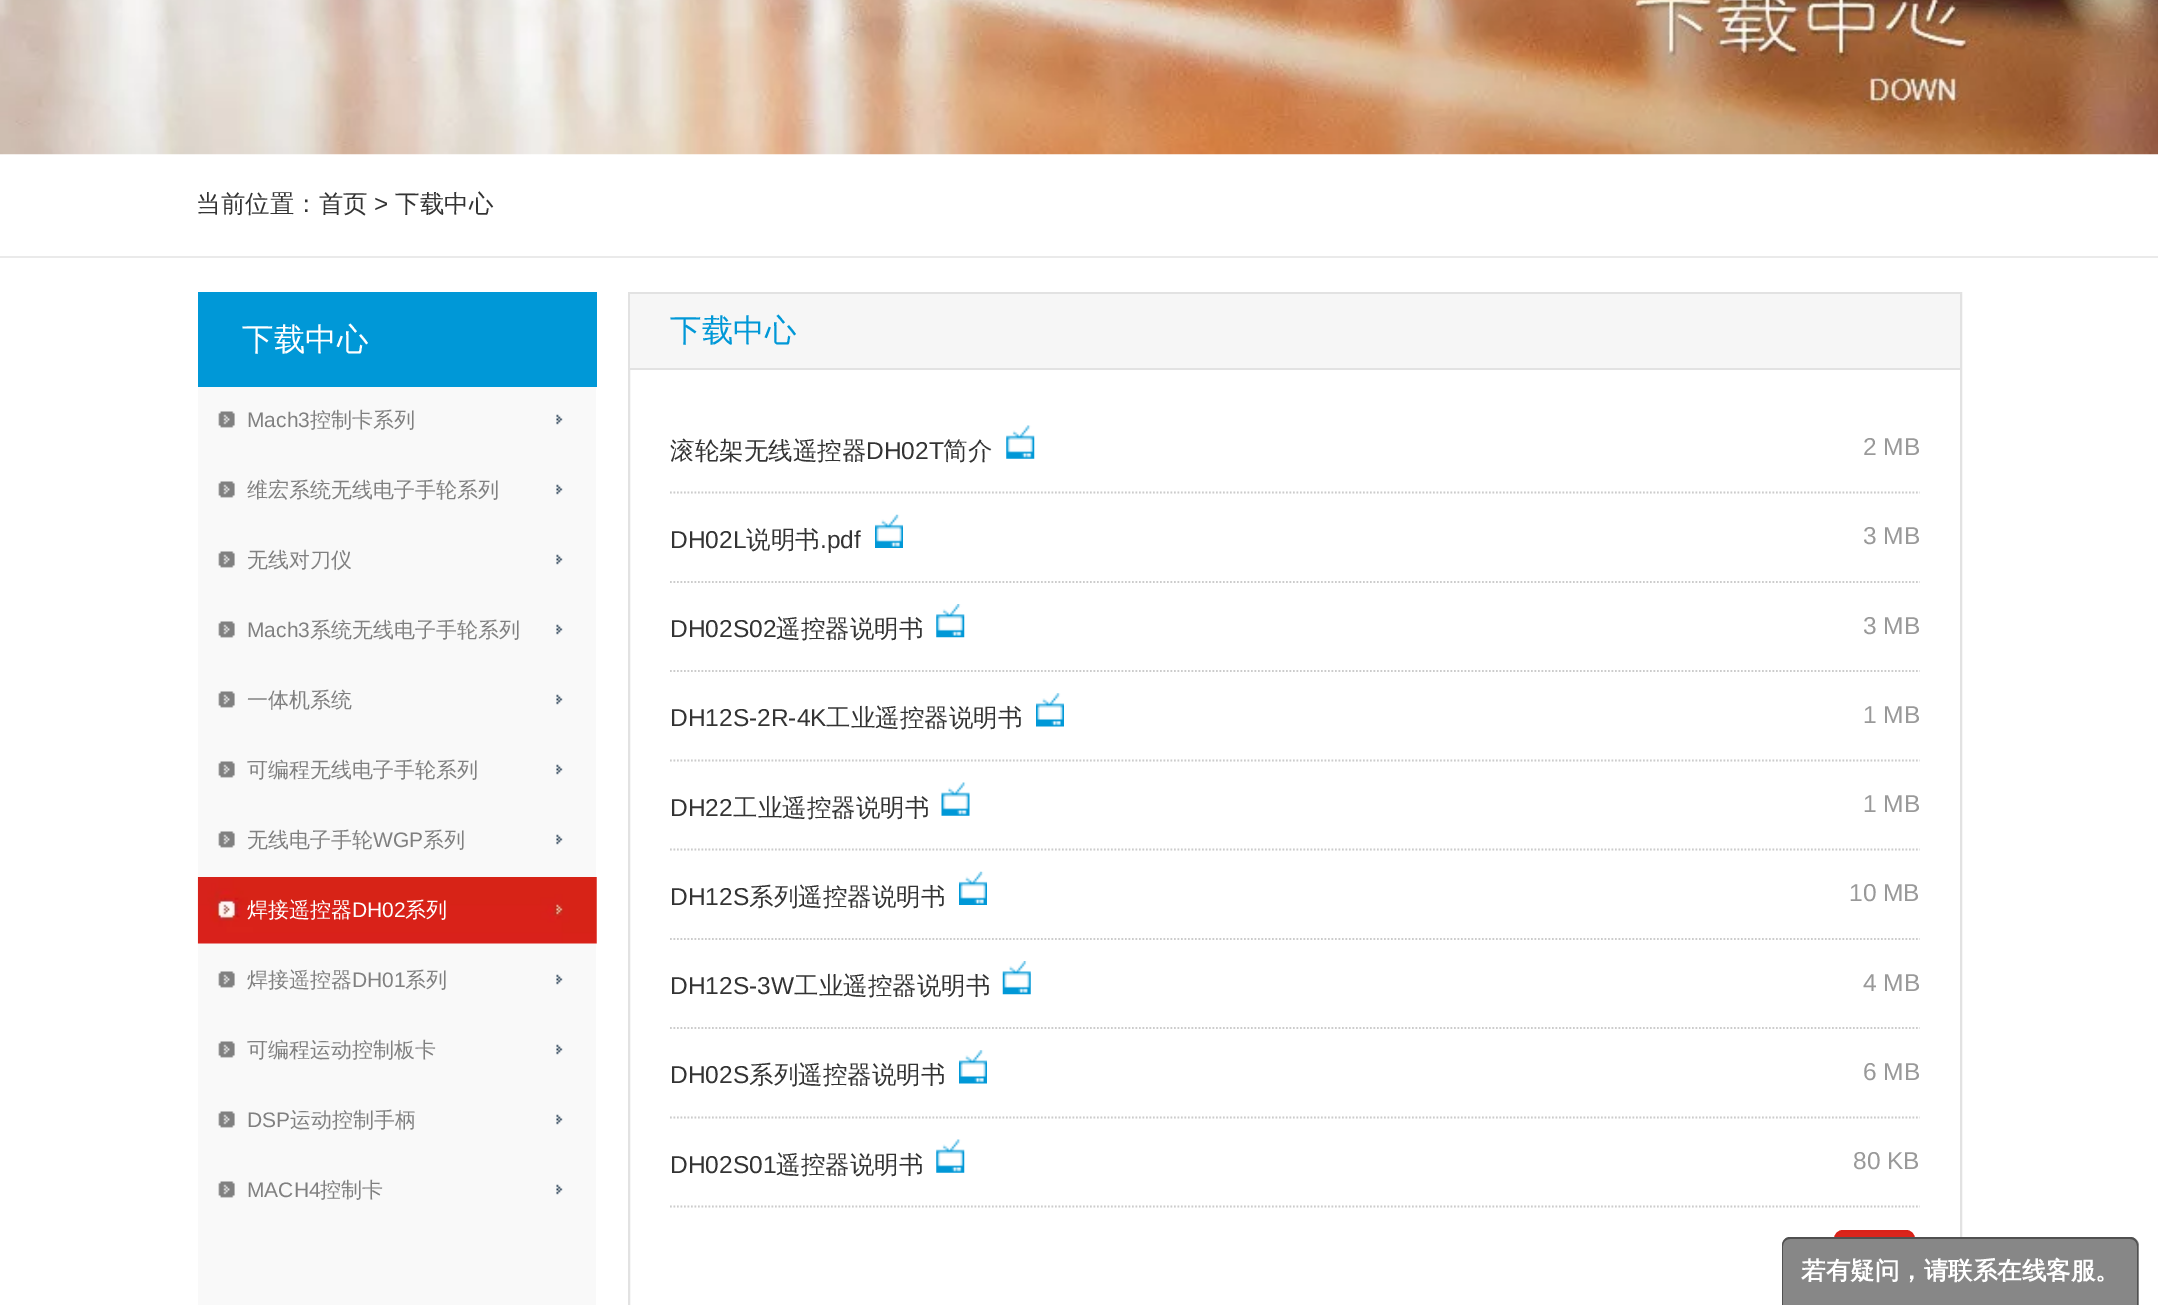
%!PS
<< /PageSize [2158 1305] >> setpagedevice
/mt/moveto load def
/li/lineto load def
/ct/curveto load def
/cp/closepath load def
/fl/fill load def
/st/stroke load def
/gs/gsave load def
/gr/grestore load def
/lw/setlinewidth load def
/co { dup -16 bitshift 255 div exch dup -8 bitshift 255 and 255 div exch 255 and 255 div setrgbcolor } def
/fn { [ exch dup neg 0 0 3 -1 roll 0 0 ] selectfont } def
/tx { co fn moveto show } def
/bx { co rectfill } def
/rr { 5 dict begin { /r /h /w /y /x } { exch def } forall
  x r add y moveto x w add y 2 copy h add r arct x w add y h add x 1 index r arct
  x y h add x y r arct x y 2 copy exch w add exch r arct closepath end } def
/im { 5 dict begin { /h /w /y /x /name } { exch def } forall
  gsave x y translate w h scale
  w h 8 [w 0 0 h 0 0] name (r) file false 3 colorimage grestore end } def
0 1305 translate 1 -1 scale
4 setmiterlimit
0 0 2158 1305 16#FFFFFF bx
(media/1.raw) 0 0 2158 155 im
0 256 2158 2 16#EAEAEA bx
198 387 398 918 16#F9F9F9 bx
198 292 399 95 16#0098D7 bx
(media/2.raw) 218 411 345 17 im
(media/2.raw) 218 481 345 17 im
(media/2.raw) 218 551 345 17 im
(media/2.raw) 218 621 345 17 im
(media/2.raw) 218 691 345 17 im
(media/2.raw) 218 761 345 17 im
(media/2.raw) 218 831 345 17 im
(media/3.raw) 197 877 400 67 im
(media/2.raw) 218 971 345 17 im
(media/2.raw) 218 1041 345 17 im
(media/2.raw) 218 1111 345 17 im
(media/2.raw) 218 1181 345 17 im
16#E2E2E2 co
2 lw
629 293 1332 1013 rectstroke
630 294 1330 74 16#F6F6F6 bx
630 368 1330 2 16#E2E2E2 bx
16#CCCCCC co
1.8 lw
[1.75 1.75] 0 setdash
670 492.5 mt 1920 492.5 li st
(media/4.raw) 1006 425 29 34 im
670 582 mt 1920 582 li st
(media/5.raw) 875 514 28 34 im
670 671 mt 1920 671 li st
(media/6.raw) 936 604 29 34 im
670 760.5 mt 1920 760.5 li st
(media/7.raw) 1036 693 28 34 im
670 849.5 mt 1920 849.5 li st
(media/8.raw) 941 782 29 34 im
670 939 mt 1920 939 li st
(media/5.raw) 959 871 28 34 im
670 1028 mt 1920 1028 li st
(media/9.raw) 1002 961 29 34 im
670 1117.5 mt 1920 1117.5 li st
(media/10.raw) 959 1050 28 34 im
670 1206.5 mt 1920 1206.5 li st
(media/11.raw) 936 1139 29 34 im
16#DA251C co
1835 1231 79 65 8 rr gs fl gr
16#D92219 co
2 lw
[] 0 setdash
st
16#878787 co
1791 1237 mt 2130 1237 li 2135 1237 2139 1241 2139 1246 ct 2139 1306 li 1782 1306 li 1782 1246 li 1782 1241 1786 1237 1791 1237 ct cp fl
16#505050 co
1790 1237 mt 2130 1237 li 2135 1237 2138 1241 2138 1246 ct 2138 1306 li 1782 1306 li 1782 1246 li 1782 1241 1785 1237 1790 1237 ct cp 1790 1239 mt 2130 1239 li 2134 1239 2137 1242 2137 1246 ct 2137 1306 li 1783 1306 li 1783 1246 li 1783 1242 1786 1239 1790 1239 ct cp eofill
(当前位置：首页) 196 212 /WenQuanYiZenHei-Medium 24.5 16#333333 tx
(>) 374 212 /LiberationSans-Regular 24.5 16#333333 tx
(下载中心) 395 212 /WenQuanYiZenHei-Medium 24.5 16#333333 tx
(下载中心) 242 350 /WenQuanYiZenHei-Medium 31.5 16#FFFFFF tx
(Mach3) 247 427 /LiberationSans-Regular 21 16#808080 tx
(控制卡系列) 310 427 /WenQuanYiZenHei-Medium 21 16#808080 tx
(维宏系统无线电子手轮系列) 247 497 /WenQuanYiZenHei-Medium 21 16#808080 tx
(无线对刀仪) 247 567 /WenQuanYiZenHei-Medium 21 16#808080 tx
(Mach3) 247 637 /LiberationSans-Regular 21 16#808080 tx
(系统无线电子手轮系列) 310 637 /WenQuanYiZenHei-Medium 21 16#808080 tx
(一体机系统) 247 707 /WenQuanYiZenHei-Medium 21 16#808080 tx
(可编程无线电子手轮系列) 247 777 /WenQuanYiZenHei-Medium 21 16#808080 tx
(无线电子手轮) 247 847 /WenQuanYiZenHei-Medium 21 16#808080 tx
(WGP) 373 847 /LiberationSans-Regular 21 16#808080 tx
(系列) 423 847 /WenQuanYiZenHei-Medium 21 16#808080 tx
(焊接遥控器) 247 917 /WenQuanYiZenHei-Medium 21 16#FFFFFF tx
(DH02) 352 917 /LiberationSans-Regular 21 16#FFFFFF tx
(系列) 405 917 /WenQuanYiZenHei-Medium 21 16#FFFFFF tx
(焊接遥控器) 247 987 /WenQuanYiZenHei-Medium 21 16#808080 tx
(DH01) 352 987 /LiberationSans-Regular 21 16#808080 tx
(系列) 405 987 /WenQuanYiZenHei-Medium 21 16#808080 tx
(可编程运动控制板卡) 247 1057 /WenQuanYiZenHei-Medium 21 16#808080 tx
(DSP) 247 1127 /LiberationSans-Regular 21 16#808080 tx
(运动控制手柄) 290 1127 /WenQuanYiZenHei-Medium 21 16#808080 tx
(MACH4) 247 1197 /LiberationSans-Regular 21 16#808080 tx
(控制卡) 320 1197 /WenQuanYiZenHei-Medium 21 16#808080 tx
(下载中心) 670 341 /WenQuanYiZenHei-Medium 31.5 16#0098D7 tx
(滚轮架无线遥控器) 670 459 /WenQuanYiZenHei-Medium 24.5 16#333333 tx
(DH02T) 866 459 /LiberationSans-Regular 24.5 16#333333 tx
(简介) 943 459 /WenQuanYiZenHei-Medium 24.5 16#333333 tx
(2 MB) 1863 455 /LiberationSans-Regular 24.5 16#999999 tx
(DH02L) 670 548 /LiberationSans-Regular 24.5 16#333333 tx
(说明书) 746 548 /WenQuanYiZenHei-Medium 24.5 16#333333 tx
(.pdf) 820 548 /LiberationSans-Regular 24.5 16#333333 tx
(3 MB) 1863 544 /LiberationSans-Regular 24.5 16#999999 tx
(DH02S02) 670 637 /LiberationSans-Regular 24.5 16#333333 tx
(遥控器说明书) 776 637 /WenQuanYiZenHei-Medium 24.5 16#333333 tx
(3 MB) 1863 634 /LiberationSans-Regular 24.5 16#999999 tx
(DH12S-2R-4K) 670 726 /LiberationSans-Regular 24.5 16#333333 tx
(工业遥控器说明书) 826 726 /WenQuanYiZenHei-Medium 24.5 16#333333 tx
(1 MB) 1863 723 /LiberationSans-Regular 24.5 16#999999 tx
(DH22) 670 816 /LiberationSans-Regular 24.5 16#333333 tx
(工业遥控器说明书) 733 816 /WenQuanYiZenHei-Medium 24.5 16#333333 tx
(1 MB) 1863 812 /LiberationSans-Regular 24.5 16#999999 tx
(DH12S) 670 905 /LiberationSans-Regular 24.5 16#333333 tx
(系列遥控器说明书) 749 905 /WenQuanYiZenHei-Medium 24.5 16#333333 tx
(10 MB) 1849 901 /LiberationSans-Regular 24.5 16#999999 tx
(DH12S-3W) 670 994 /LiberationSans-Regular 24.5 16#333333 tx
(工业遥控器说明书) 794 994 /WenQuanYiZenHei-Medium 24.5 16#333333 tx
(4 MB) 1863 991 /LiberationSans-Regular 24.5 16#999999 tx
(DH02S) 670 1083 /LiberationSans-Regular 24.5 16#333333 tx
(系列遥控器说明书) 749 1083 /WenQuanYiZenHei-Medium 24.5 16#333333 tx
(6 MB) 1863 1080 /LiberationSans-Regular 24.5 16#999999 tx
(DH02S01) 670 1173 /LiberationSans-Regular 24.5 16#333333 tx
(遥控器说明书) 776 1173 /WenQuanYiZenHei-Medium 24.5 16#333333 tx
(80 KB) 1853 1169 /LiberationSans-Regular 24.5 16#999999 tx
(若有疑问，请联系在线客服。) 1801 1279 /WenQuanYiZenHei-Bold 24.5 16#FFFFFF tx
showpage
